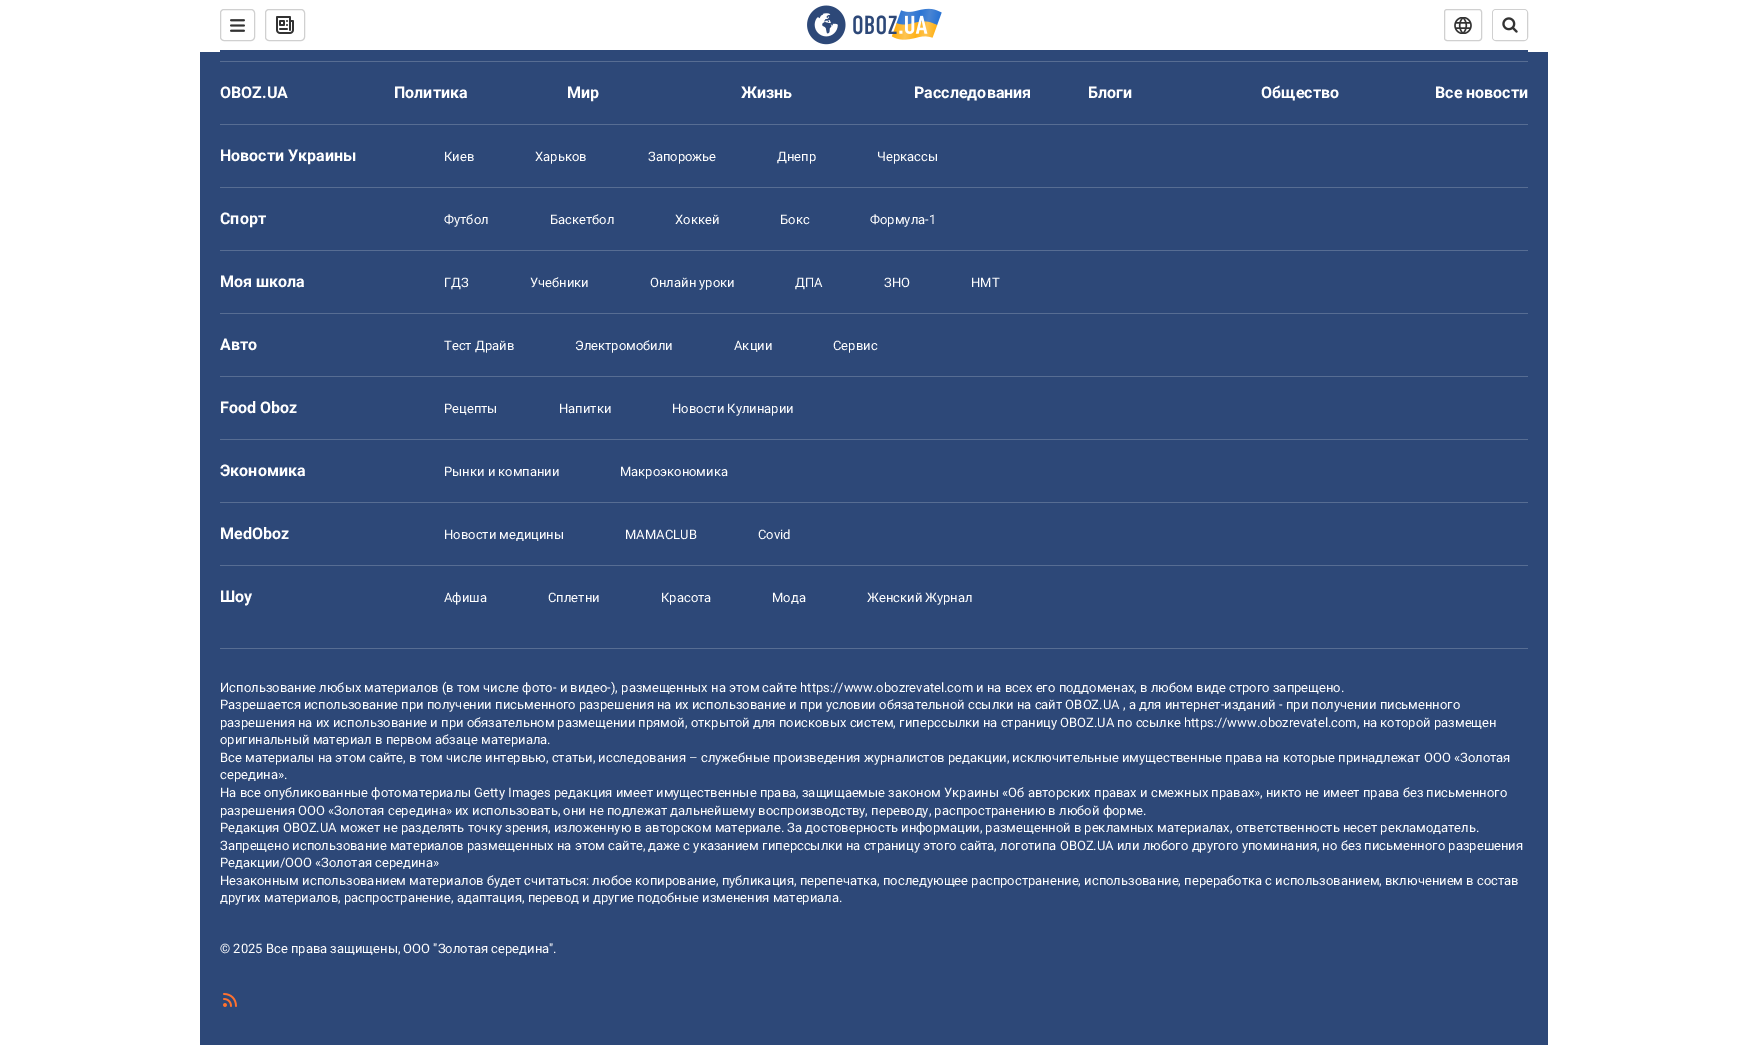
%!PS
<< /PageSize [1748 1045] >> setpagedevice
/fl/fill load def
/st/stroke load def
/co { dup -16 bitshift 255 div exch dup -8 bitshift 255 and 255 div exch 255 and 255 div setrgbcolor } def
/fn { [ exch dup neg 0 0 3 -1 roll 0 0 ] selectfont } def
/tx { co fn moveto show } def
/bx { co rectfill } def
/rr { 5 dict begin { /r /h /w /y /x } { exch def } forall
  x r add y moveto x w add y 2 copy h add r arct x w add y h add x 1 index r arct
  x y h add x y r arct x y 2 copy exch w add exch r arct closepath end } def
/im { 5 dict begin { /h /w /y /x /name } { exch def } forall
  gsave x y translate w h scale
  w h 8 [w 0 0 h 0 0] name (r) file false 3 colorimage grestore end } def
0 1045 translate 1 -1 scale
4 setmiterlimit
0 0 1748 1045 16#FFFFFF bx
220 50 1308 2 16#2D4878 bx
16#D0D0D0 co
220.5 9.5 34 31 3.5 rr st
(media/1.raw) 230 19 15 13 im
265.5 9.5 39 31 3.5 rr st
(media/2.raw) 276 16 18 18 im
(media/3.raw) 807 5 135 40 im
1444.5 9.5 37 31 2.5 rr st
(media/4.raw) 1454 17 18 17 im
1492.5 9.5 35 31 3.5 rr st
16#FFFFFF co
1493 10 34 30 3 rr fl
(media/5.raw) 1502 17 16 16 im
200 52 1348 993 16#2D4878 bx
220 61 1308 1 16#576D93 bx
220 124 1308 1 16#576D93 bx
220 187 1308 1 16#576D93 bx
220 250 1308 1 16#576D93 bx
220 313 1308 1 16#576D93 bx
220 376 1308 1 16#576D93 bx
220 439 1308 1 16#576D93 bx
220 502 1308 1 16#576D93 bx
220 565 1308 1 16#576D93 bx
220 648 1308 1 16#576D93 bx
(media/6.raw) 223 993 14 14 im
(OBOZ.UA) 220 98 /Roboto-Bold 16 16#FFFFFF tx
(Политика) 394 98 /Roboto-Bold 16 16#FFFFFF tx
(Мир) 567 98 /Roboto-Bold 16 16#FFFFFF tx
(Жизнь) 741 98 /Roboto-Bold 16 16#FFFFFF tx
(Расследования) 914 98 /Roboto-Bold 16 16#FFFFFF tx
(Блоги) 1088 98 /Roboto-Bold 16 16#FFFFFF tx
(Общество) 1261 98 /Roboto-Bold 16 16#FFFFFF tx
(Все новости) 1435 98 /Roboto-Bold 16 16#FFFFFF tx
(Новости Украины) 220 161 /Roboto-Bold 16 16#FFFFFF tx
(Киев) 444 161 /Roboto-Regular 13 16#FFFFFF tx
(Харьков) 535 161 /Roboto-Regular 13 16#FFFFFF tx
(Запорожье) 648 161 /Roboto-Regular 13 16#FFFFFF tx
(Днепр) 777 161 /Roboto-Regular 13 16#FFFFFF tx
(Черкассы) 877 161 /Roboto-Regular 13 16#FFFFFF tx
(Спорт) 220 224 /Roboto-Bold 16 16#FFFFFF tx
(Футбол) 444 224 /Roboto-Regular 13 16#FFFFFF tx
(Баскетбол) 550 224 /Roboto-Regular 13 16#FFFFFF tx
(Хоккей) 675 224 /Roboto-Regular 13 16#FFFFFF tx
(Бокс) 780 224 /Roboto-Regular 13 16#FFFFFF tx
(Формула-1) 870 224 /Roboto-Regular 13 16#FFFFFF tx
(Моя школа) 220 287 /Roboto-Bold 16 16#FFFFFF tx
(ГДЗ) 444 287 /Roboto-Regular 13 16#FFFFFF tx
(Учебники) 530 287 /Roboto-Regular 13 16#FFFFFF tx
(Онлайн уроки) 650 287 /Roboto-Regular 13 16#FFFFFF tx
(ДПА) 795 287 /Roboto-Regular 13 16#FFFFFF tx
(ЗНО) 884 287 /Roboto-Regular 13 16#FFFFFF tx
(НМТ) 971 287 /Roboto-Regular 13 16#FFFFFF tx
(Авто) 220 350 /Roboto-Bold 16 16#FFFFFF tx
(Тест Драйв) 444 350 /Roboto-Regular 13 16#FFFFFF tx
(Электромобили) 575 350 /Roboto-Regular 13 16#FFFFFF tx
(Акции) 734 350 /Roboto-Regular 13 16#FFFFFF tx
(Сервис) 833 350 /Roboto-Regular 13 16#FFFFFF tx
(Food Oboz) 220 413 /Roboto-Bold 16 16#FFFFFF tx
(Рецепты) 444 413 /Roboto-Regular 13 16#FFFFFF tx
(Напитки) 559 413 /Roboto-Regular 13 16#FFFFFF tx
(Новости Кулинарии) 672 413 /Roboto-Regular 13 16#FFFFFF tx
(Экономика) 220 476 /Roboto-Bold 16 16#FFFFFF tx
(Рынки и компании) 444 476 /Roboto-Regular 13 16#FFFFFF tx
(Mакроэкономика) 620 476 /Roboto-Regular 13 16#FFFFFF tx
(MedOboz) 220 539 /Roboto-Bold 16 16#FFFFFF tx
(Новости медицины) 444 539 /Roboto-Regular 13 16#FFFFFF tx
(MAMACLUB) 625 539 /Roboto-Regular 13 16#FFFFFF tx
(Covid) 758 539 /Roboto-Regular 13 16#FFFFFF tx
(Шоу) 220 602 /Roboto-Bold 16 16#FFFFFF tx
(Афиша) 444 602 /Roboto-Regular 13 16#FFFFFF tx
(Сплетни) 548 602 /Roboto-Regular 13 16#FFFFFF tx
(Красота) 661 602 /Roboto-Regular 13 16#FFFFFF tx
(Мода) 772 602 /Roboto-Regular 13 16#FFFFFF tx
(Женский Журнал) 867 602 /Roboto-Regular 13 16#FFFFFF tx
(Использование любых материалов \(в том числе фото- и видео-\), размещенных на этом сайте https://www.obozrevatel.com и на всех его поддоменах, в любом виде строго запрещено.) 220 692 /Roboto-Regular 13 16#FFFFFF tx
(Разрешается использование при получении письменного разрешения на их использование и при условии обязательной ссылки на сайт OBOZ.UA , а для интернет-изданий - при получении письменного) 220 709 /Roboto-Regular 13 16#FFFFFF tx
(разрешения на их использование и при обязательном размещении прямой, открытой для поисковых систем, гиперссылки на страницу OBOZ.UA по ссылке https://www.obozrevatel.com, на которой размещен) 220 727 /Roboto-Regular 13 16#FFFFFF tx
(оригинальный материал в первом абзаце материала.) 220 744 /Roboto-Regular 13 16#FFFFFF tx
(Все материалы на этом сайте, в том числе интервью, статьи, исследования – служебные произведения журналистов редакции, исключительные имущественные права на которые принадлежат ООО «Золотая) 220 762 /Roboto-Regular 13 16#FFFFFF tx
(середина».) 220 779 /Roboto-Regular 13 16#FFFFFF tx
(На все опубликованные фотоматериалы Getty Images редакция имеет имущественные права, защищаемые законом Украины «Об авторских правах и смежных правах», никто не имеет права без письменного) 220 797 /Roboto-Regular 13 16#FFFFFF tx
(разрешения ООО «Золотая середина» их использовать, они не подлежат дальнейшему воспроизводству, переводу, распространению в любой форме.) 220 815 /Roboto-Regular 13 16#FFFFFF tx
(Редакция OBOZ.UA может не разделять точку зрения, изложенную в авторском материале. За достоверность информации, размещенной в рекламных материалах, ответственность несет рекламодатель.) 220 832 /Roboto-Regular 13 16#FFFFFF tx
(Запрещено использование материалов размещенных на этом сайте, даже с указанием гиперссылки на страницу этого сайта, логотипа OBOZ.UA или любого другого упоминания, но без письменного разрешения) 220 850 /Roboto-Regular 13 16#FFFFFF tx
(Редакции/ООО «Золотая середина») 220 867 /Roboto-Regular 13 16#FFFFFF tx
(Незаконным использованием материалов будет считаться: любое копирование, публикация, перепечатка, последующее распространение, использование, переработка с использованием, включением в состав) 220 885 /Roboto-Regular 13 16#FFFFFF tx
(других материалов, распространение, адаптация, перевод и другие подобные изменения материала.) 220 902 /Roboto-Regular 13 16#FFFFFF tx
(© 2025 Все права защищены, ООО "Золотая середина".) 220 953 /Roboto-Regular 13 16#FFFFFF tx
showpage
